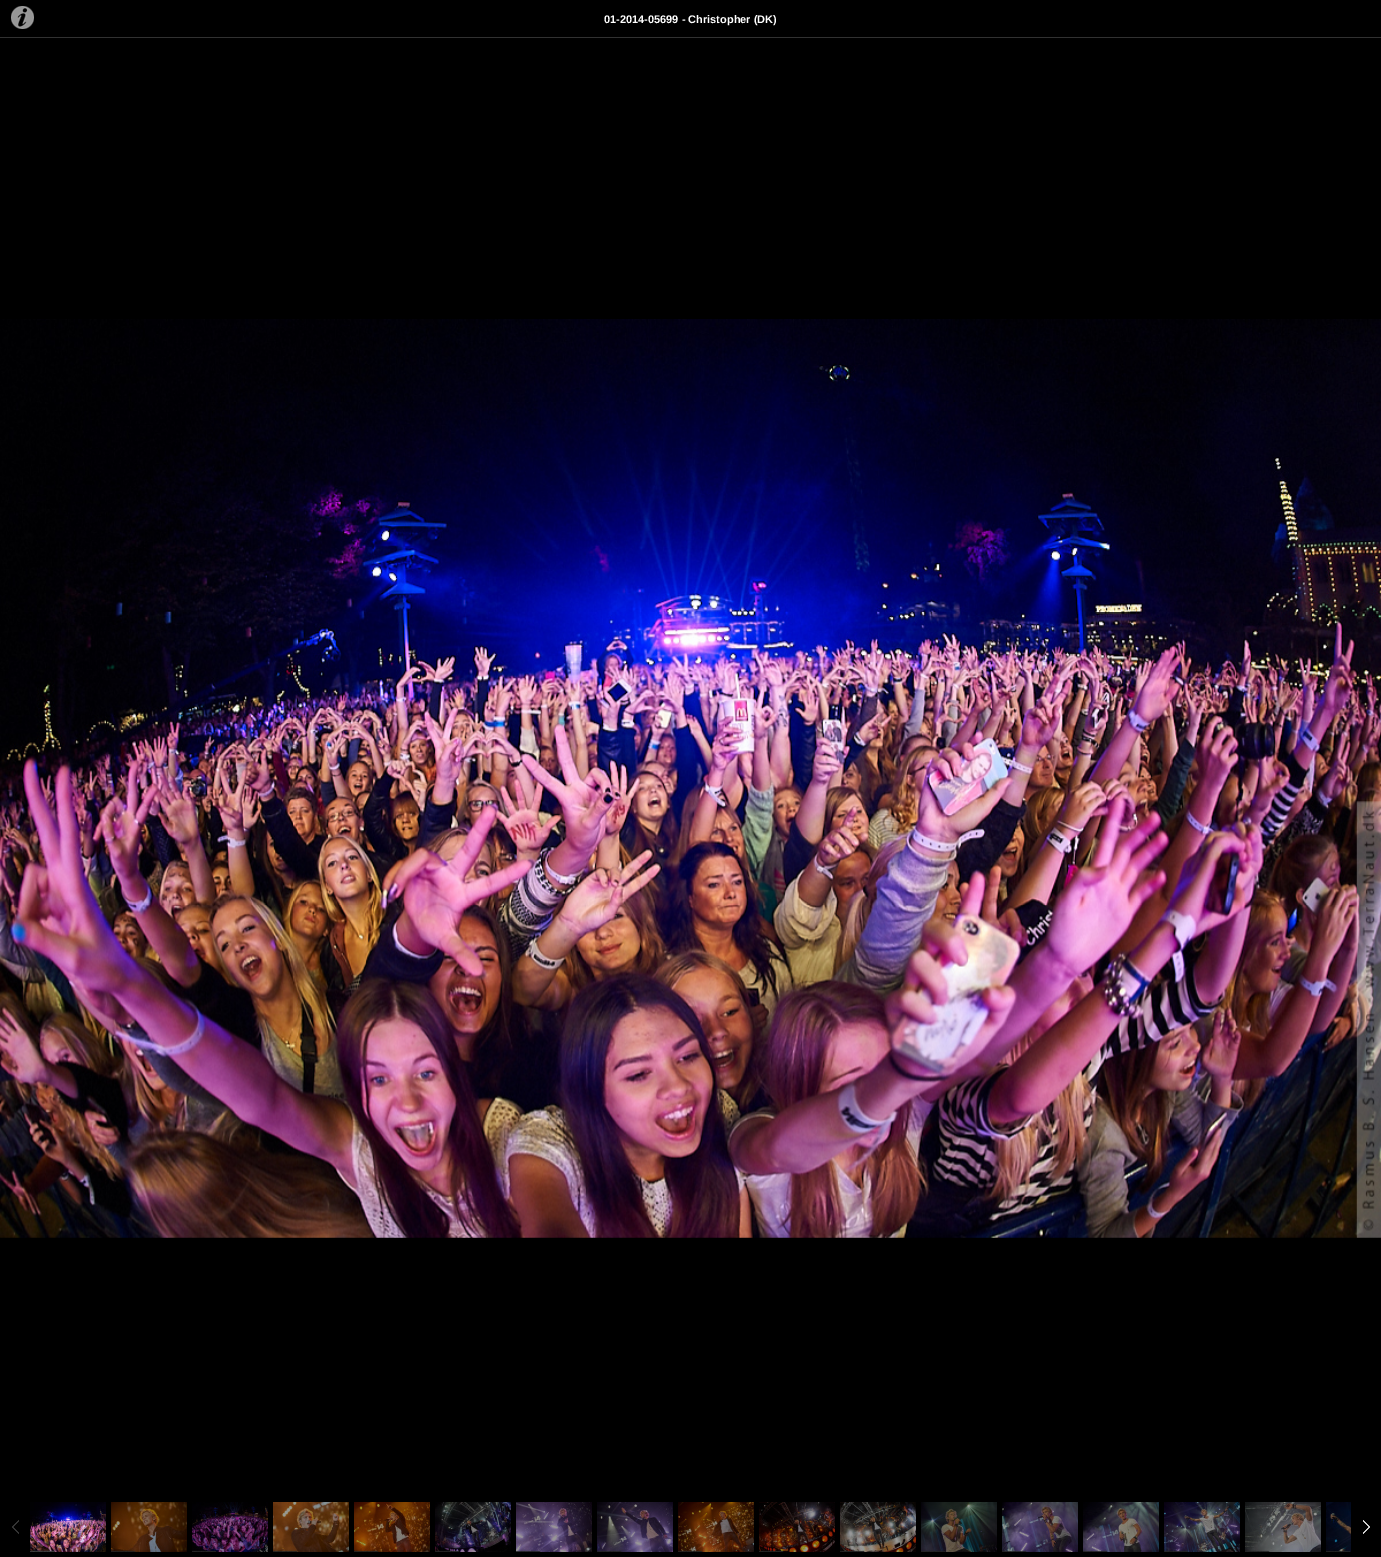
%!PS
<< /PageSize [1381 1557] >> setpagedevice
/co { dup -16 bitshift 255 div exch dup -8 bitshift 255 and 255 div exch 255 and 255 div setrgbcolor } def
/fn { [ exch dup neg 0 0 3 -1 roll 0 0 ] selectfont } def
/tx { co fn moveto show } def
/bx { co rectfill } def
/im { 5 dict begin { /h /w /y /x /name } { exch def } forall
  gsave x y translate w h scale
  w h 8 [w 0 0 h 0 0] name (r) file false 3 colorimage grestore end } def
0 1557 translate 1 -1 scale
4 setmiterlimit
0 0 1381 1557 16#000000 bx
(media/1.raw) 11 6 23 23 im
0 37 1381 1 16#313131 bx
(media/2.raw) 0 319 1381 919 im
(media/3.raw) 12 1520 7 14 im
(media/4.raw) 30 1502 76 50 im
(media/5.raw) 111 1502 76 50 im
(media/6.raw) 192 1502 76 50 im
(media/7.raw) 273 1502 76 50 im
(media/8.raw) 354 1502 76 50 im
(media/9.raw) 435 1502 76 50 im
(media/10.raw) 516 1502 76 50 im
(media/11.raw) 597 1502 76 50 im
(media/12.raw) 678 1502 76 50 im
(media/13.raw) 759 1502 76 50 im
(media/14.raw) 840 1502 76 50 im
(media/15.raw) 921 1502 76 50 im
(media/16.raw) 1002 1502 76 50 im
(media/17.raw) 1083 1502 76 50 im
(media/18.raw) 1164 1502 76 50 im
(media/19.raw) 1245 1502 76 50 im
(media/20.raw) 1326 1502 25 50 im
(media/21.raw) 1363 1520 7 14 im
(01-2014-05699 - Christopher \(DK\)) 604 23 /LiberationSans-Bold 11 16#FFFFFF tx
showpage
